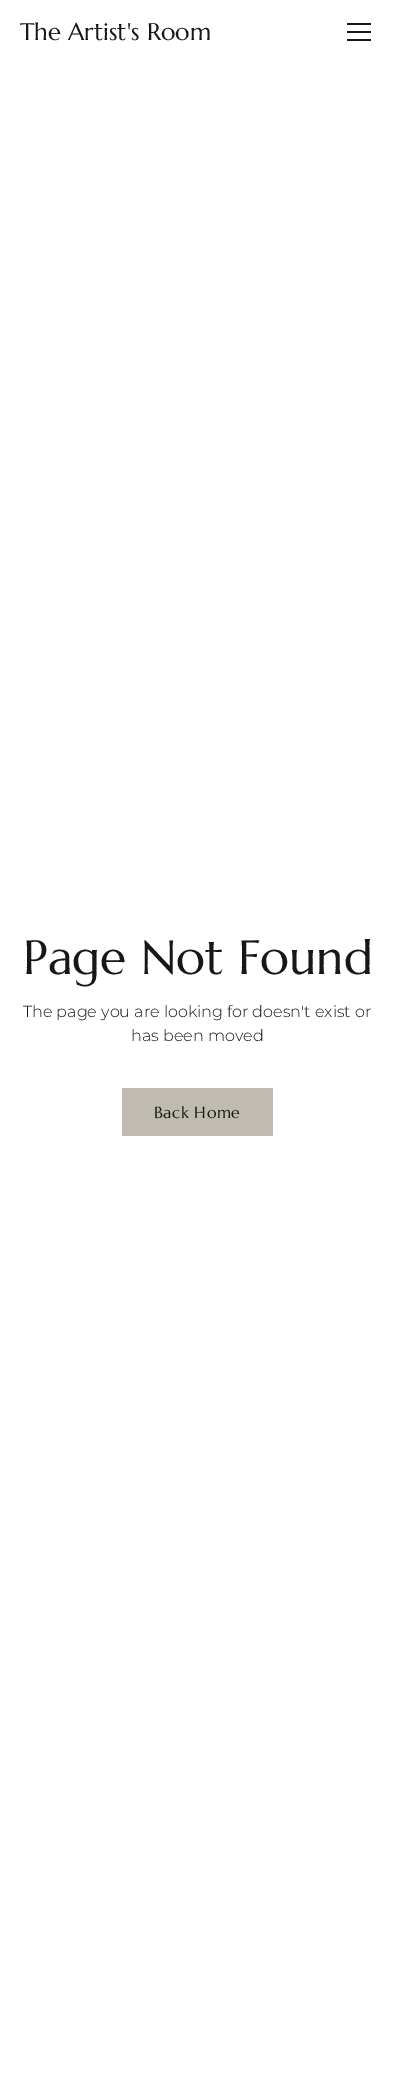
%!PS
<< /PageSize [395 2082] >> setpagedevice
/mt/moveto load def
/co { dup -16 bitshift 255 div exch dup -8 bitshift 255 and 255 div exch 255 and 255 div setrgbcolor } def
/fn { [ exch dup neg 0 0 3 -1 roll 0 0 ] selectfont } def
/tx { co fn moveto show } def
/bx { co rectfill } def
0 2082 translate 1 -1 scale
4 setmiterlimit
0 0 395 2082 16#FFFFFF bx
347 23 24 2 16#181717 bx
347 31 24 2 16#181717 bx
347 39 24 2 16#181717 bx
122 1088 151 48 16#BFBBB0 bx
(The Artist's Room) 20 40 /Marcellus-Regular 24 16#181717 tx
(Page Not Found) 23 974 /Marcellus-Regular 48 16#181717 tx
(The page you are looking for doesn't exist or) 23 1017 /Montserrat-Light 16 16#181717 tx
(has been moved) 131 1041 /Montserrat-Light 16 16#181717 tx
/Marcellus-Regular 16 fn
154 1118 mt .5 0 (Back Home) ashow
showpage
